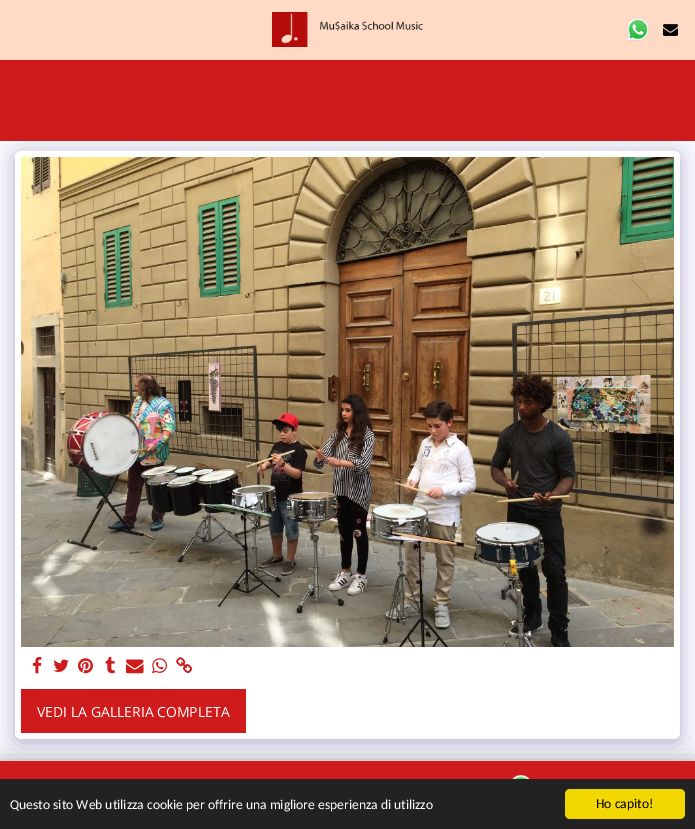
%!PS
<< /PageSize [695 829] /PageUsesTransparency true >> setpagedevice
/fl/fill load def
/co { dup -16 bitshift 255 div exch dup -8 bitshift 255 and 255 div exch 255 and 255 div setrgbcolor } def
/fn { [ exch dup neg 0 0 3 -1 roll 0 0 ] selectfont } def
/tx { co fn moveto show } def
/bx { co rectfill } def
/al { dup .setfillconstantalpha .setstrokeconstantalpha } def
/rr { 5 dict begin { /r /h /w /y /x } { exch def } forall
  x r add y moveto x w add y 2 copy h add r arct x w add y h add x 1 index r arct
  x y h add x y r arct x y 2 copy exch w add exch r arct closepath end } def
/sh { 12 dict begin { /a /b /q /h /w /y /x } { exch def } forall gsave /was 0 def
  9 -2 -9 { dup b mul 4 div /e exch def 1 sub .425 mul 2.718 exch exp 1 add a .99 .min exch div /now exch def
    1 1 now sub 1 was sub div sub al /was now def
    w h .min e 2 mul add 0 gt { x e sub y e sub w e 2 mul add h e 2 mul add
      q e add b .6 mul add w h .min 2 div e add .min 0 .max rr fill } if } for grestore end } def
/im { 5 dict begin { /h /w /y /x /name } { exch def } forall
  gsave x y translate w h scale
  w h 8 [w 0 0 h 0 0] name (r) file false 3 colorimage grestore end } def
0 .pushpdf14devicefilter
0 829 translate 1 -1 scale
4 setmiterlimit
0 0 695 829 16#F8F8FF bx
0 0 695 60 16#FFDBC5 bx
(media/1.raw) 272 12 151 35 im
(media/2.raw) 627 18 22 23 im
(media/3.raw) 663 24 15 12 im
0 60 695 81 16#CF1B1B bx
16#4D3F7A co
15 154 665 588 6 10 .4 sh
16#FFFFFF co
15 151 665 588 6 rr fl
(media/4.raw) 21 157 653 490 im
(media/5.raw) 32 657 10 17 im
(media/6.raw) 53 659 16 13 im
(media/7.raw) 78 658 15 16 im
(media/8.raw) 105 657 10 17 im
(media/9.raw) 126 659 18 15 im
(media/10.raw) 152 658 15 16 im
(media/11.raw) 176 657 16 17 im
21 689 225 44 16#CF1B1B bx
16#000000 co
0 761 695 68 0 10 .31 sh
0 761 695 18 16#CF1B1B bx
(media/12.raw) 512 775 18 4 im
0 779 695 50 16#222222 bx
16#F1D600 co
565 789 120 30 5 rr fl
(VEDI LA GALLERIA COMPLETA) 37 717 /OpenSans-Regular 14 16#FFFFFF tx
(Questo sito Web utilizza cookie per offrire una migliore esperienza di utilizzo) 10 809 /Carlito-Regular 13.6 16#FFFFFF tx
(Ho capito!) 596 808 /Carlito-Regular 13.6 16#000000 tx
.poppdf14devicefilter showpage
